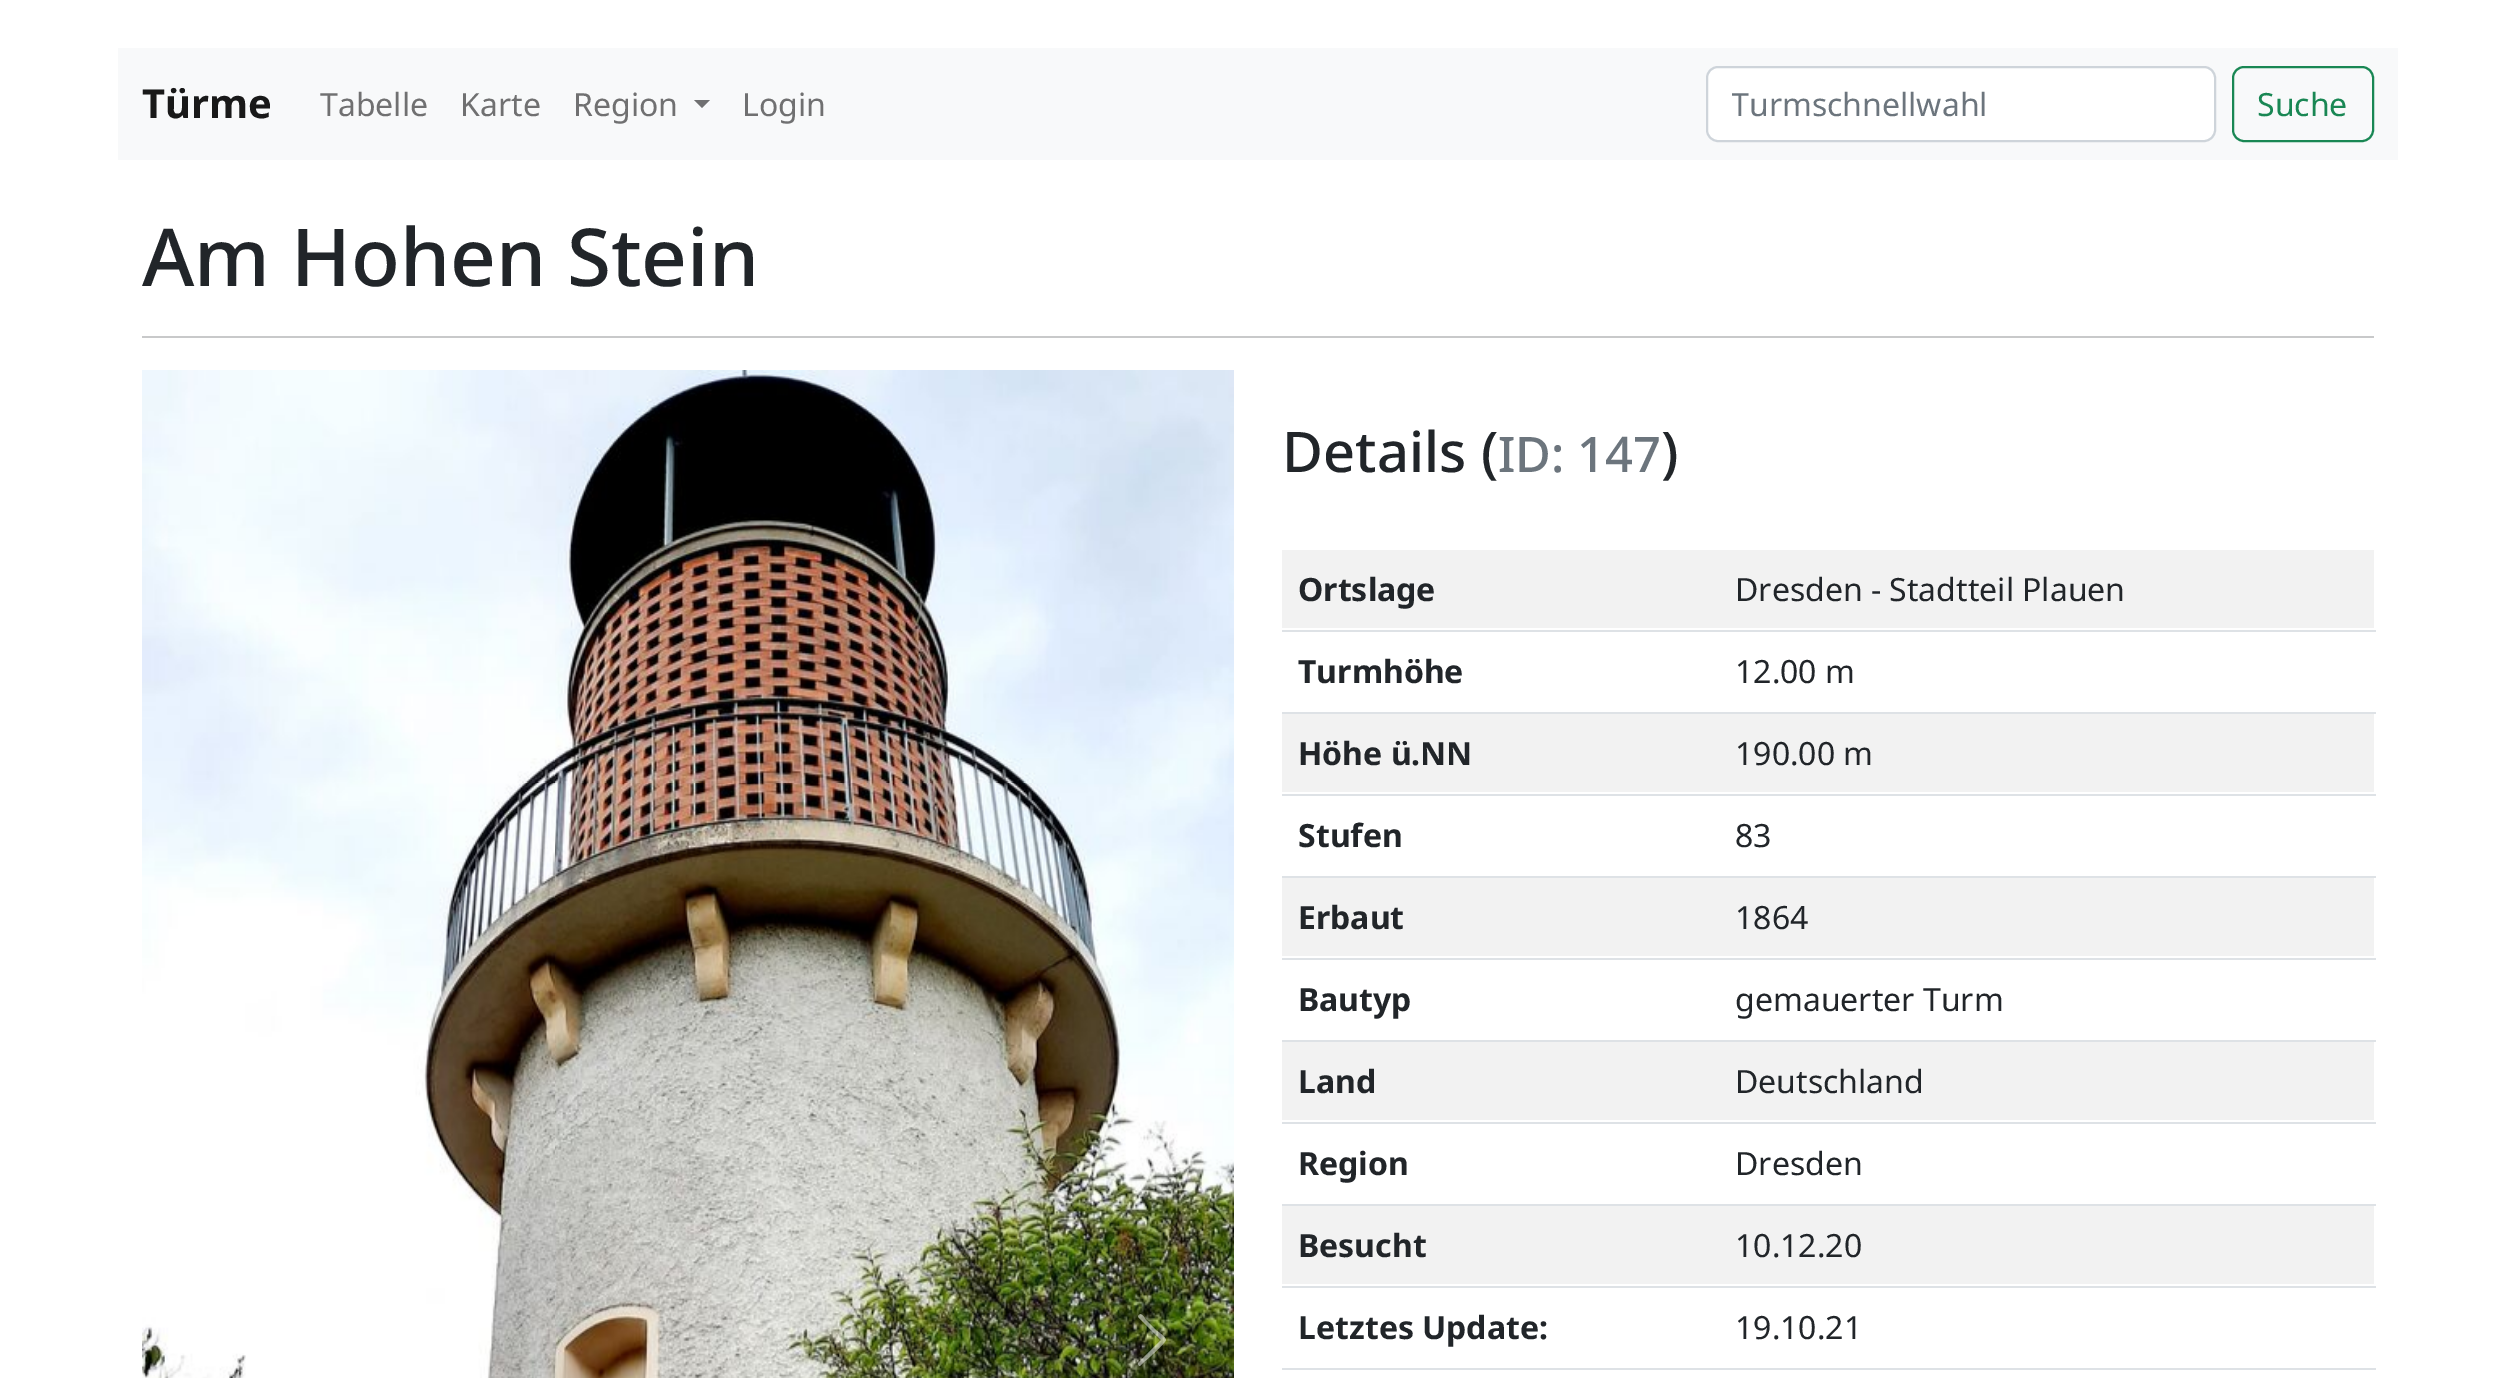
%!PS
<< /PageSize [2515 1378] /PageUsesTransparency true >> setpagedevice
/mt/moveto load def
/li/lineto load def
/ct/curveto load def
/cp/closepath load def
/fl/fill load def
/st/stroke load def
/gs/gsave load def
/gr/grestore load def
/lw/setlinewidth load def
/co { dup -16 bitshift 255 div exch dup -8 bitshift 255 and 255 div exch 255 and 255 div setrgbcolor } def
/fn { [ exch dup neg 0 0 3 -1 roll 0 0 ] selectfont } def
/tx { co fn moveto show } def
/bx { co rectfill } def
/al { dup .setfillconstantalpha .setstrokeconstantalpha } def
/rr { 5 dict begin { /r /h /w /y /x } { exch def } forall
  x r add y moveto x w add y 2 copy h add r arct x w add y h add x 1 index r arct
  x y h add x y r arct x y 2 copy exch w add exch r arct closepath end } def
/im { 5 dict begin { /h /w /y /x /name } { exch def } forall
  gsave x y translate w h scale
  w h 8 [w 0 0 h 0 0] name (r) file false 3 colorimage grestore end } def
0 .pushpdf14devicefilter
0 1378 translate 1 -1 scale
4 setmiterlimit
0 0 2515 1378 16#FFFFFF bx
118 48 2280 112 16#F8F9FA bx
16#707071 co
694 100 mt 710 100 li 702 108 li cp fl
16#FFFFFF co
1707 67 508 74 11 rr gs fl gr
16#CED4DA co
2 lw
st
16#198754 co
2233 67 140 74 11 rr st
142 336 2232 2 16#C8C9CA bx
(media/1.raw) 142 370 1092 1008 im
0.5 al
16#FFFFFF co
237 1315 mt 240 1317 234 1320 234 1321 ct 215 1340 li 238 1363 li 238 1365 237 1366 236 1366 ct 231 1361 li 228 1359 210 1342 210 1340 ct 210 1338 217 1332 219 1331 ct 231 1319 li 231 1318 235 1312 237 1315 ct cp fl
1139 1315 mt 1141 1312 1145 1318 1145 1319 ct 1157 1331 li 1159 1332 1166 1338 1166 1340 ct 1166 1342 1148 1359 1145 1361 ct 1140 1366 li 1139 1366 1138 1365 1138 1363 ct 1161 1340 li 1142 1321 li 1142 1320 1136 1317 1139 1315 ct cp fl
1 al
1282 550 1092 78 16#F2F2F2 bx
1282 630 1094 2 16#DEE2E6 bx
1282 712 1094 2 16#DEE2E6 bx
1282 714 1092 78 16#F2F2F2 bx
1282 794 1094 2 16#DEE2E6 bx
1282 876 1094 2 16#DEE2E6 bx
1282 878 1092 78 16#F2F2F2 bx
1282 958 1094 2 16#DEE2E6 bx
1282 1040 1094 2 16#DEE2E6 bx
1282 1042 1092 78 16#F2F2F2 bx
1282 1122 1094 2 16#DEE2E6 bx
1282 1204 1094 2 16#DEE2E6 bx
1282 1206 1092 78 16#F2F2F2 bx
1282 1286 1094 2 16#DEE2E6 bx
1282 1368 1094 2 16#DEE2E6 bx
(Türme) 142 118 /NotoSans-Bold 40 16#191919 tx
(Tabelle) 320 116 /NotoSans-Regular 32 16#707071 tx
(Karte) 460 116 /NotoSans-Regular 32 16#707071 tx
(Region) 573 116 /NotoSans-Regular 32 16#707071 tx
(Login) 742 116 /NotoSans-Regular 32 16#707071 tx
gs
1732 82 428 44 rectclip
(Turmschnellwahl) 1731 116 /NotoSans-Regular 32 16#6C757D tx
gr
(Suche) 2257 116 /NotoSans-Regular 32 16#198754 tx
(Am Hohen Stein) 142 286 /NotoSans-Medium 80 16#212529 tx
(Details \() 1282 472 /NotoSans-Medium 56 16#212529 tx
(ID: 147) 1498 472 /NotoSans-Medium 49 16#6C757D tx
(\)) 1661 472 /NotoSans-Medium 56 16#212529 tx
(Ortslage) 1298 601 /NotoSans-Bold 32 16#212529 tx
(Dresden - Stadtteil Plauen) 1735 601 /NotoSans-Regular 32 16#212529 tx
(Turmhöhe) 1298 683 /NotoSans-Bold 32 16#212529 tx
(12.00 m) 1735 683 /NotoSans-Regular 32 16#212529 tx
(Höhe ü.NN) 1298 765 /NotoSans-Bold 32 16#212529 tx
(190.00 m) 1735 765 /NotoSans-Regular 32 16#212529 tx
(Stufen) 1298 847 /NotoSans-Bold 32 16#212529 tx
(83) 1735 847 /NotoSans-Regular 32 16#212529 tx
(Erbaut) 1298 929 /NotoSans-Bold 32 16#212529 tx
(1864) 1735 929 /NotoSans-Regular 32 16#212529 tx
(Bautyp) 1298 1011 /NotoSans-Bold 32 16#212529 tx
(gemauerter Turm) 1735 1011 /NotoSans-Regular 32 16#212529 tx
(Land) 1298 1093 /NotoSans-Bold 32 16#212529 tx
(Deutschland) 1735 1093 /NotoSans-Regular 32 16#212529 tx
(Region) 1298 1175 /NotoSans-Bold 32 16#212529 tx
(Dresden) 1735 1175 /NotoSans-Regular 32 16#212529 tx
(Besucht) 1298 1257 /NotoSans-Bold 32 16#212529 tx
(10.12.20) 1735 1257 /NotoSans-Regular 32 16#212529 tx
(Letztes Update:) 1298 1339 /NotoSans-Bold 32 16#212529 tx
(19.10.21) 1735 1339 /NotoSans-Regular 32 16#212529 tx
.poppdf14devicefilter showpage
